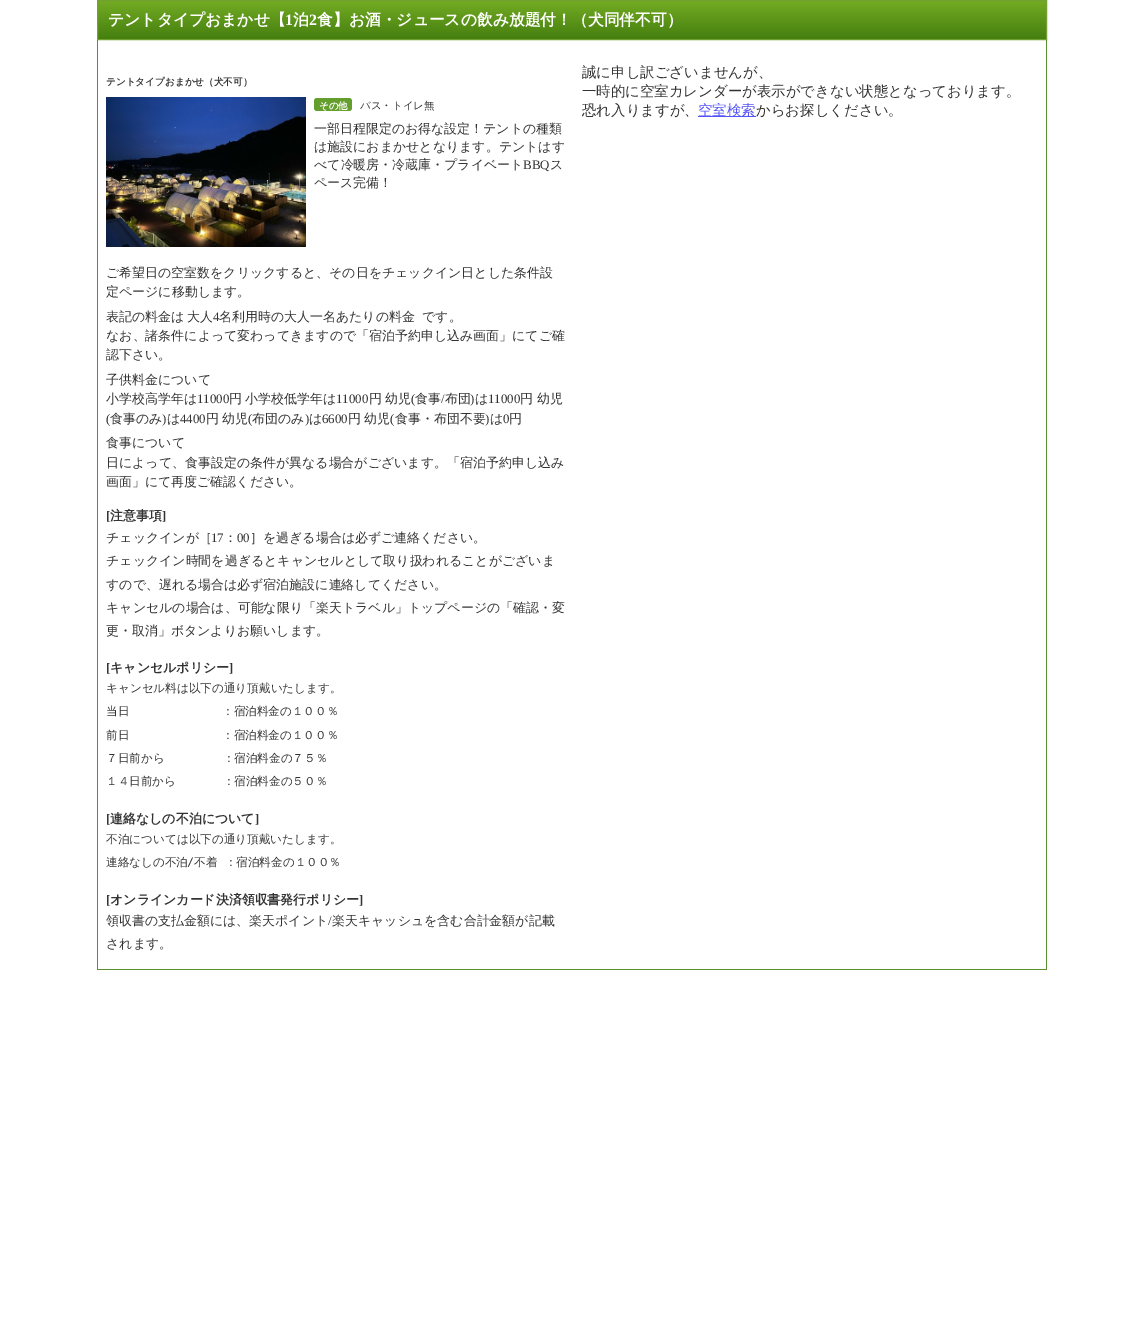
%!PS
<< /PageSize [1143 1338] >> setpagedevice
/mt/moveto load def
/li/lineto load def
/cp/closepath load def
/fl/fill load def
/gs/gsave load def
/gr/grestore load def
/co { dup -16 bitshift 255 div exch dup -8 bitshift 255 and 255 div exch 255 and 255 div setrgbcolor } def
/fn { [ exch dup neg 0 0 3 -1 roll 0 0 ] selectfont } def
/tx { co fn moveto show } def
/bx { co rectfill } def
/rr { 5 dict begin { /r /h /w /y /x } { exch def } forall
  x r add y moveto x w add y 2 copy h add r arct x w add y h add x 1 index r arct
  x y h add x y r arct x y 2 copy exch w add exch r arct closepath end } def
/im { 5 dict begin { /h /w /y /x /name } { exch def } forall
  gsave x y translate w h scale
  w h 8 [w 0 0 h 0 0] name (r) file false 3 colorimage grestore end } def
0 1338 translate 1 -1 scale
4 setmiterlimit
0 0 1143 1338 16#FFFFFF bx
gs 98 1 mt 1046 1 li 1046 39 li 98 39 li cp clip newpath
<< /ShadingType 2 /ColorSpace /DeviceRGB /Coords [572 1 572 39] /Extend [true true] /Function << /FunctionType 2 /Domain [0 1] /C0 [.451 .671 .137] /C1 [.271 .498 .059] /N 1 >> >> shfill gr
16#71A230 co
97.5 .5 949 39 rectstroke
1046 40 1 930 16#5A8E2F bx
97 969 950 1 16#5A8E2F bx
97 40 1 930 16#5A8E2F bx
(media/1.raw) 106 97 200 150 im
16#649E2C co
314 98 38 13 3 rr fl
698 116 58 1 16#5454F6 bx
(テントタイプおまかせ【) 108 25 /WenQuanYiZenHei-Bold 15.8 16#FFFFFF tx
(1) 285 25 /LiberationSerif-Bold 15.8 16#FFFFFF tx
(泊) 293 25 /WenQuanYiZenHei-Bold 15.8 16#FFFFFF tx
(2) 309 25 /LiberationSerif-Bold 15.8 16#FFFFFF tx
(食】お酒・ジュースの飲み放題付！（犬同伴不可）) 317 25 /WenQuanYiZenHei-Bold 15.8 16#FFFFFF tx
(テントタイプおまかせ（犬不可）) 106 85 /WenQuanYiZenHei-Bold 9.6 16#333333 tx
(その他) 319 109 /WenQuanYiZenHei-Bold 9.5 16#FFFFFF tx
(バス・トイレ無) 360 109 /WenQuanYiZenHei-Medium 10.5 16#333333 tx
(一部日程限定のお得な設定！テントの種類) 314 133 /WenQuanYiZenHei-Medium 12.95 16#333333 tx
(は施設におまかせとなります。テントはす) 314 151 /WenQuanYiZenHei-Medium 12.95 16#333333 tx
(べて冷暖房・冷蔵庫・プライベート) 314 169 /WenQuanYiZenHei-Medium 12.95 16#333333 tx
(BBQ) 523 169 /LiberationSerif-Regular 12.95 16#333333 tx
(ス) 550 169 /WenQuanYiZenHei-Medium 12.95 16#333333 tx
(ペース完備！) 314 187 /WenQuanYiZenHei-Medium 12.95 16#333333 tx
(ご希望日の空室数をクリックすると、その日をチェックイン日とした条件設) 106 277 /WenQuanYiZenHei-Medium 12.95 16#333333 tx
(定ページに移動します。) 106 296 /WenQuanYiZenHei-Medium 12.95 16#333333 tx
(表記の料金は) 106 321 /WenQuanYiZenHei-Medium 12.95 16#333333 tx
(大人) 187 321 /WenQuanYiZenHei-Medium 12.95 16#333333 tx
(4) 213 321 /LiberationSerif-Regular 12.95 16#333333 tx
(名利用時の大人一名あたりの料金) 219 321 /WenQuanYiZenHei-Medium 12.95 16#333333 tx
(です。) 422 321 /WenQuanYiZenHei-Medium 12.95 16#333333 tx
(なお、諸条件によって変わってきますので「宿泊予約申し込み画面」にてご確) 106 340 /WenQuanYiZenHei-Medium 12.95 16#333333 tx
gs
106 307 460 58 rectclip
(認下さい。) 106 359 /WenQuanYiZenHei-Medium 12.95 16#333333 tx
gr
(子供料金について) 106 384 /WenQuanYiZenHei-Medium 12.95 16#333333 tx
(小学校高学年は) 106 403 /WenQuanYiZenHei-Medium 12.95 16#333333 tx
(11000) 197 403 /LiberationSerif-Regular 12.95 16#333333 tx
(円) 229 403 /WenQuanYiZenHei-Medium 12.95 16#333333 tx
(小学校低学年は) 245 403 /WenQuanYiZenHei-Medium 12.95 16#333333 tx
(11000) 336 403 /LiberationSerif-Regular 12.95 16#333333 tx
(円) 369 403 /WenQuanYiZenHei-Medium 12.95 16#333333 tx
(幼児) 385 403 /WenQuanYiZenHei-Medium 12.95 16#333333 tx
(\() 411 403 /LiberationSerif-Regular 12.95 16#333333 tx
(食事) 415 403 /WenQuanYiZenHei-Medium 12.95 16#333333 tx
(/) 441 403 /LiberationSerif-Regular 12.95 16#333333 tx
(布団) 445 403 /WenQuanYiZenHei-Medium 12.95 16#333333 tx
(\)) 470 403 /LiberationSerif-Regular 12.95 16#333333 tx
(は) 475 403 /WenQuanYiZenHei-Medium 12.95 16#333333 tx
(11000) 488 403 /LiberationSerif-Regular 12.95 16#333333 tx
(円) 520 403 /WenQuanYiZenHei-Medium 12.95 16#333333 tx
(幼児) 537 403 /WenQuanYiZenHei-Medium 12.95 16#333333 tx
(\() 106 423 /LiberationSerif-Regular 12.95 16#333333 tx
(食事のみ) 110 423 /WenQuanYiZenHei-Medium 12.95 16#333333 tx
(\)) 162 423 /LiberationSerif-Regular 12.95 16#333333 tx
(は) 167 423 /WenQuanYiZenHei-Medium 12.95 16#333333 tx
(4400) 180 423 /LiberationSerif-Regular 12.95 16#333333 tx
(円) 206 423 /WenQuanYiZenHei-Medium 12.95 16#333333 tx
(幼児) 222 423 /WenQuanYiZenHei-Medium 12.95 16#333333 tx
(\() 248 423 /LiberationSerif-Regular 12.95 16#333333 tx
(布団のみ) 252 423 /WenQuanYiZenHei-Medium 12.95 16#333333 tx
(\)) 305 423 /LiberationSerif-Regular 12.95 16#333333 tx
(は) 309 423 /WenQuanYiZenHei-Medium 12.95 16#333333 tx
(6600) 322 423 /LiberationSerif-Regular 12.95 16#333333 tx
(円) 348 423 /WenQuanYiZenHei-Medium 12.95 16#333333 tx
(幼児) 364 423 /WenQuanYiZenHei-Medium 12.95 16#333333 tx
(\() 390 423 /LiberationSerif-Regular 12.95 16#333333 tx
(食事・布団不要) 395 423 /WenQuanYiZenHei-Medium 12.95 16#333333 tx
(\)) 485 423 /LiberationSerif-Regular 12.95 16#333333 tx
(は) 490 423 /WenQuanYiZenHei-Medium 12.95 16#333333 tx
(0) 503 423 /LiberationSerif-Regular 12.95 16#333333 tx
(円) 509 423 /WenQuanYiZenHei-Medium 12.95 16#333333 tx
(食事について) 106 447 /WenQuanYiZenHei-Medium 12.95 16#333333 tx
(日によって、食事設定の条件が異なる場合がございます。「宿泊予約申し込み) 106 467 /WenQuanYiZenHei-Medium 12.95 16#333333 tx
(画面」にて再度ご確認ください。) 106 486 /WenQuanYiZenHei-Medium 12.95 16#333333 tx
([) 106 520 /LiberationSerif-Bold 12.95 16#333333 tx
(注意事項) 110 520 /WenQuanYiZenHei-Bold 12.95 16#333333 tx
(]) 162 520 /LiberationSerif-Bold 12.95 16#333333 tx
(チェックインが［) 106 542 /WenQuanYiZenHei-Medium 12.95 16#333333 tx
(17) 211 542 /LiberationSerif-Regular 12.95 16#333333 tx
(：) 224 542 /WenQuanYiZenHei-Medium 12.95 16#333333 tx
(00) 237 542 /LiberationSerif-Regular 12.95 16#333333 tx
(］を過ぎる場合は必ずご連絡ください。) 250 542 /WenQuanYiZenHei-Medium 12.95 16#333333 tx
(チェックイン時間を過ぎるとキャンセルとして取り扱われることがございま) 106 565 /WenQuanYiZenHei-Medium 12.95 16#333333 tx
(すので、遅れる場合は必ず宿泊施設に連絡してください。) 106 589 /WenQuanYiZenHei-Medium 12.95 16#333333 tx
(キャンセルの場合は、可能な限り「楽天トラベル」トップページの「確認・変) 106 612 /WenQuanYiZenHei-Medium 12.95 16#333333 tx
(更・取消」ボタンよりお願いします。) 106 635 /WenQuanYiZenHei-Medium 12.95 16#333333 tx
([) 106 672 /LiberationSerif-Bold 12.95 16#333333 tx
(キャンセルポリシー) 110 672 /WenQuanYiZenHei-Bold 12.95 16#333333 tx
(]) 229 672 /LiberationSerif-Bold 12.95 16#333333 tx
(キャンセル料は以下の通り頂戴いたします。) 106 692 /WenQuanYiZenHei-Medium 11.6 16#333333 tx
(当日　　　　　　　　：宿泊料金の１００％) 106 715 /WenQuanYiZenHei-Medium 11.6 16#333333 tx
(前日　　　　　　　　：宿泊料金の１００％) 106 739 /WenQuanYiZenHei-Medium 11.6 16#333333 tx
(７日前から　　　　　：宿泊料金の７５％) 106 762 /WenQuanYiZenHei-Medium 11.6 16#333333 tx
(１４日前から　　　　：宿泊料金の５０％) 106 785 /WenQuanYiZenHei-Medium 11.6 16#333333 tx
([) 106 823 /LiberationSerif-Bold 12.95 16#333333 tx
(連絡なしの不泊について) 110 823 /WenQuanYiZenHei-Bold 12.95 16#333333 tx
(]) 255 823 /LiberationSerif-Bold 12.95 16#333333 tx
(不泊については以下の通り頂戴いたします。) 106 843 /WenQuanYiZenHei-Medium 11.6 16#333333 tx
(連絡なしの不泊) 106 866 /WenQuanYiZenHei-Medium 11.6 16#333333 tx
(/) 187 866 /DejaVuSansMono-Regular 11.6 16#333333 tx
/WenQuanYiZenHei-Medium 11.6 fn
194 866 mt 4 0 32 (不着 ：宿泊料金の１００％) widthshow
([) 106 904 /LiberationSerif-Bold 12.95 16#333333 tx
(オンラインカード決済領収書発行ポリシー) 110 904 /WenQuanYiZenHei-Bold 12.95 16#333333 tx
(]) 359 904 /LiberationSerif-Bold 12.95 16#333333 tx
(領収書の支払金額には、楽天ポイント) 106 925 /WenQuanYiZenHei-Medium 12.95 16#333333 tx
(/) 328 925 /LiberationSerif-Regular 12.95 16#333333 tx
(楽天キャッシュを含む合計金額が記載) 332 925 /WenQuanYiZenHei-Medium 12.95 16#333333 tx
(されます。) 106 948 /WenQuanYiZenHei-Medium 12.95 16#333333 tx
(誠に申し訳ございませんが、) 582 77 /WenQuanYiZenHei-Medium 14.4 16#333333 tx
(一時的に空室カレンダーが表示ができない状態となっております。) 582 96 /WenQuanYiZenHei-Medium 14.4 16#333333 tx
(恐れ入りますが、) 582 115 /WenQuanYiZenHei-Medium 14.4 16#333333 tx
(空室検索) 698 115 /WenQuanYiZenHei-Medium 14.4 16#5454F6 tx
(からお探しください。) 756 115 /WenQuanYiZenHei-Medium 14.4 16#333333 tx
showpage
